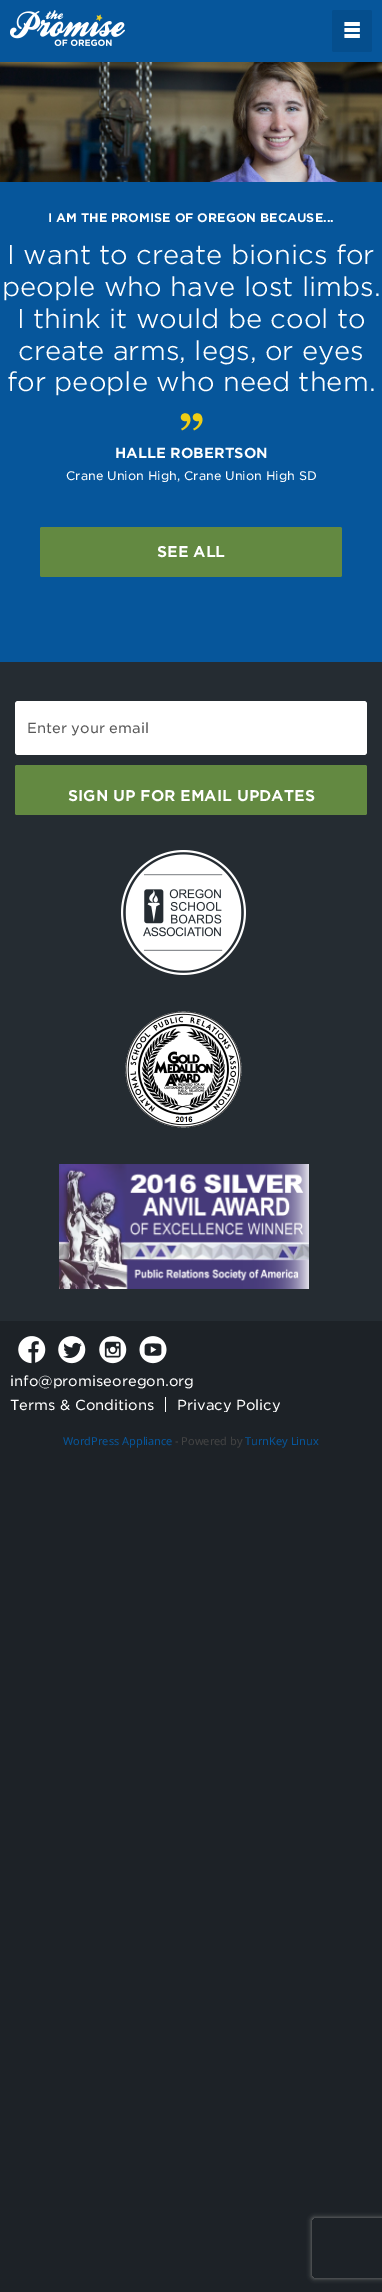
%!PS
<< /PageSize [382 2292] /PageUsesTransparency true >> setpagedevice
/mt/moveto load def
/li/lineto load def
/ct/curveto load def
/cp/closepath load def
/fl/fill load def
/gs/gsave load def
/gr/grestore load def
/co { dup -16 bitshift 255 div exch dup -8 bitshift 255 and 255 div exch 255 and 255 div setrgbcolor } def
/fn { [ exch dup neg 0 0 3 -1 roll 0 0 ] selectfont } def
/tx { co fn moveto show } def
/bx { co rectfill } def
/al { dup .setfillconstantalpha .setstrokeconstantalpha } def
/rr { 5 dict begin { /r /h /w /y /x } { exch def } forall
  x r add y moveto x w add y 2 copy h add r arct x w add y h add x 1 index r arct
  x y h add x y r arct x y 2 copy exch w add exch r arct closepath end } def
/sh { 12 dict begin { /a /b /q /h /w /y /x } { exch def } forall gsave /was 0 def
  9 -2 -9 { dup b mul 4 div /e exch def 1 sub .425 mul 2.718 exch exp 1 add a .99 .min exch div /now exch def
    1 1 now sub 1 was sub div sub al /was now def
    w h .min e 2 mul add 0 gt { x e sub y e sub w e 2 mul add h e 2 mul add
      q e add b .6 mul add w h .min 2 div e add .min 0 .max rr fill } if } for grestore end } def
/im { 5 dict begin { /h /w /y /x /name } { exch def } forall
  gsave x y translate w h scale
  w h 8 [w 0 0 h 0 0] name (r) file false 3 colorimage grestore end } def
0 .pushpdf14devicefilter
0 2292 translate 1 -1 scale
4 setmiterlimit
0 0 382 2292 16#1D2227 bx
0 0 382 62 16#06569B bx
(media/1.raw) 10 10 115 36 im
16#054E8D co
332 10 40 42 2 rr fl
(media/2.raw) 344 22 16 16 im
(media/3.raw) 0 62 382 120 im
0 182 382 480 16#06569B bx
(media/4.raw) 180 413 23 18 im
16#638941 co
40 527 302 50 2 rr fl
0 662 382 659 16#252C32 bx
16#FFFFFF co
15 701 352 54 3 rr fl
16#638941 co
15 765 352 50 2 rr fl
(media/5.raw) 121 850 125 125 im
(media/6.raw) 125 1011 117 117 im
(media/7.raw) 59 1164 250 125 im
(media/8.raw) 18 1336 28 28 im
(media/9.raw) 58 1336 28 28 im
(media/10.raw) 99 1336 28 28 im
(media/11.raw) 139 1336 28 28 im
165 1397 1 15 16#FFFFFF bx
gs
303 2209 mt 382 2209 li 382 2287 li 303 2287 li cp 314 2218 mt 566 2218 li 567 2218 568 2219 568 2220 ct 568 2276 li 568 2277 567 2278 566 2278 ct 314 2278 li 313 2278 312 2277 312 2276 ct 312 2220 li 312 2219 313 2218 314 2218 ct cp eoclip newpath
16#808080 co
312 2218 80 60 2 2.5 1 sh
gr
(I AM THE PROMISE OF OREGON BECAUSE...) 48 222 /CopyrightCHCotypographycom-Regular 12 16#FFFFFF tx
(I want to create bionics for) 7 264 /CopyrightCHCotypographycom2-Light 26 16#FFFFFF tx
(people who have lost limbs.) 2 296 /CopyrightCHCotypographycom2-Light 26 16#FFFFFF tx
(I think it would be cool to) 17 328 /CopyrightCHCotypographycom2-Light 26 16#FFFFFF tx
(create arms, legs, or eyes) 18 360 /CopyrightCHCotypographycom2-Light 26 16#FFFFFF tx
(for people who need them.) 7 391 /CopyrightCHCotypographycom2-Light 26 16#FFFFFF tx
(HALLE ROBERTSON) 115 458 /CopyrightCHCotypographycom-Regular 14 16#FFFFFF tx
(Crane Union High, Crane Union High SD) 66 480 /CopyrightCHCotypographycom-Light 12 16#FFFFFF tx
(SEE ALL) 157 557 /CopyrightCHCotypographycom-Regular 15 16#FFFFFF tx
(Enter your email) 27 733 /CopyrightCHCotypographycom-Light 14 16#585858 tx
(SIGN UP FOR EMAIL UPDATES) 68 801 /CopyrightCHCotypographycom-Regular 15 16#FFFFFF tx
(info@promiseoregon.org) 10 1386 /CopyrightCHCotypographycom-Light 14 16#FFFFFF tx
(Terms & Conditions) 10 1410 /CopyrightCHCotypographycom-Light 14 16#FFFFFF tx
gs
10 1374 362 38 rectclip
(Privacy Policy) 177 1410 /CopyrightCHCotypographycom-Light 14 16#FFFFFF tx
gr
(WordPress Appliance) 63 1445 /NotoSans-Regular 11 16#06569B tx
(- Powered by) 175 1445 /NotoSans-Regular 11 16#434343 tx
(TurnKey Linux) 245 1445 /NotoSans-Regular 11 16#06569B tx
.poppdf14devicefilter showpage
